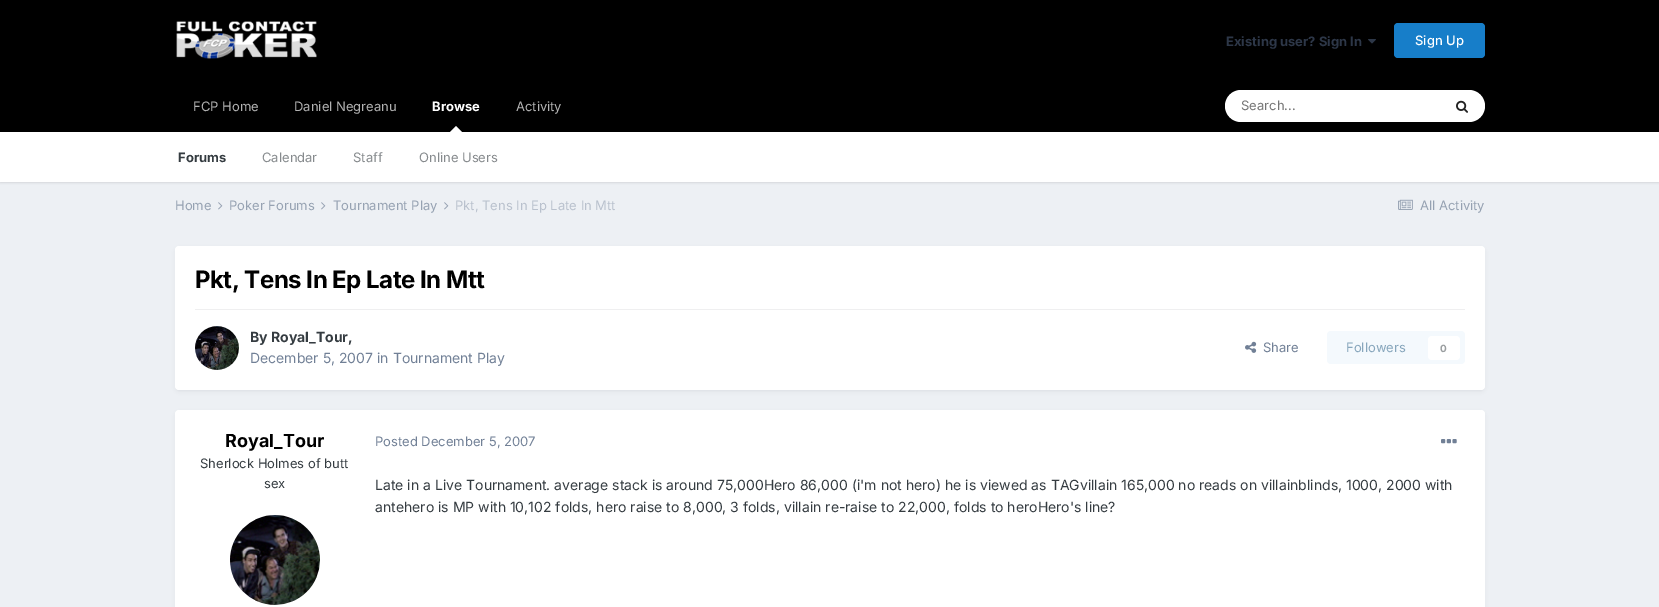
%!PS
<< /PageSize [1659 607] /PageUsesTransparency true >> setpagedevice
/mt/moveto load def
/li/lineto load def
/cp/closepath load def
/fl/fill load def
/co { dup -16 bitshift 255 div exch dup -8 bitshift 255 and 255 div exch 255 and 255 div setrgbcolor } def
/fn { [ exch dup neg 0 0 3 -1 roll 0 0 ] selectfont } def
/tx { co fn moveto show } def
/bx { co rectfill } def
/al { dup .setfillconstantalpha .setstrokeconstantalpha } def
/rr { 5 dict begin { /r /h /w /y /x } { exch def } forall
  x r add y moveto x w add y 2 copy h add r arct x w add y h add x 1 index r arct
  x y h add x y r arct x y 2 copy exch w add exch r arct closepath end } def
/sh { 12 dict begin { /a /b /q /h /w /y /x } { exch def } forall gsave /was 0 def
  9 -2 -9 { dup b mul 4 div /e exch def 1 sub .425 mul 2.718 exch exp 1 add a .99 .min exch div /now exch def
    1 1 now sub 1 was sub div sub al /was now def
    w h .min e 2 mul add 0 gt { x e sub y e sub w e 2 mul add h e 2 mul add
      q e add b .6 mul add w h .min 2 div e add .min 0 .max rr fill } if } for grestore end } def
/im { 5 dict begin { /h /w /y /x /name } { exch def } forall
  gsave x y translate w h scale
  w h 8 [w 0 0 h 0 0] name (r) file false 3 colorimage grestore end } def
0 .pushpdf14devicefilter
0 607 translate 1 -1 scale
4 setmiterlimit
0 0 1659 607 16#EDF0F4 bx
0 0 1659 132 16#000000 bx
(media/1.raw) 176 21 141 38 im
(media/2.raw) 1368 39 8 5 im
16#177EC9 co
1394 23 91 35 4 rr fl
16#000000 co
0 133 1659 50 0 1 .1 sh
16#FFFFFF co
462 132 mt 450 132 li 456 126 li cp fl
1225 90 260 32 16 rr fl
(media/3.raw) 1456 100 12 13 im
0 132 1659 50 16#FFFFFF bx
(media/4.raw) 218 202 5 8 im
(media/4.raw) 321 202 5 8 im
(media/4.raw) 444 202 5 8 im
(media/5.raw) 1398 199 15 11 im
16#2D3748 co
176 249 1308 142 3 2 .1 sh
16#FFFFFF co
175 246 1310 144 4 rr fl
195 309 1270 1 16#EFEFF0 bx
(media/6.raw) 195 326 44 44 im
(media/7.raw) 1245 341 12 12 im
16#F4F9FD co
1327 331 138 33 4 rr fl
16#FFFFFF co
1428 336 32 24 4 rr fl
16#2D3748 co
176 413 1308 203 3 2 .1 sh
16#FFFFFF co
175 410 1310 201 4 rr fl
(media/8.raw) 230 515 90 90 im
(media/9.raw) 1441 439 16 5 im
(Existing user? Sign In) 1226 46 /Inter-Bold 13 16#2D3748 tx
(Sign Up) 1415 45 /Inter-Medium 13 16#FFFFFF tx
(Browse) 432 111 /Inter-Bold 13 16#FFFFFF tx
(Forums) 178 162 /Inter-Bold 13 16#353C41 tx
(Calendar) 262 162 /Inter-Regular 13 16#868A8D tx
(Staff) 353 162 /Inter-Regular 13 16#868A8D tx
(Online Users) 419 162 /Inter-Regular 13 16#868A8D tx
(FCP Home) 193 111 /Inter-Regular 13 16#B3B3B3 tx
(Daniel Negreanu) 294 111 /Inter-Regular 13 16#B3B3B3 tx
(Activity) 516 111 /Inter-Regular 13 16#B3B3B3 tx
(Search...) 1241 110 /Inter-Regular 13 16#757575 tx
(Home) 175 210 /Inter-Regular 13 16#96A2B2 tx
(Poker Forums) 229 210 /Inter-Regular 13 16#96A2B2 tx
(Tournament Play) 333 210 /Inter-Regular 13 16#96A2B2 tx
(Pkt, Tens In Ep Late In Mtt) 455 210 /Inter-Regular 13 16#B9C1CD tx
(All Activity) 1420 210 /Inter-Regular 13 16#96A2B2 tx
/Inter-Bold 24 fn
16#000000 co
195 288 mt -.5 0 (Pkt, Tens In Ep Late In Mtt) ashow
(By Royal_Tour,) 250 342 /Inter-Bold 14 16#353C41 tx
(December 5, 2007 in Tournament Play) 250 363 /Inter-Regular 14 16#718096 tx
(Share) 1263 352 /Inter-Regular 13 16#718096 tx
(Followers) 1346 352 /Inter-Regular 13 16#87A6BC tx
(0) 1440 352 /Inter-Bold 10 16#9A9EA0 tx
(Royal_Tour) 225 447 /Inter-Bold 18 16#000000 tx
(Sherlock Holmes of butt) 200 468 /Inter-Regular 13 16#353C41 tx
(sex) 264 488 /Inter-Regular 13 16#353C41 tx
(Posted December 5, 2007) 375 446 /Inter-Regular 13 16#718096 tx
(Late in a Live Tournament. average stack is around 75,000Hero 86,000 \(i'm not hero\) he is viewed as TAGvillain 165,000 no reads on villainblinds, 1000, 2000 with) 375 490 /Inter-Regular 14 16#353C41 tx
(antehero is MP with 10,102 folds, hero raise to 8,000, 3 folds, villain re-raise to 22,000, folds to heroHero's line?) 375 512 /Inter-Regular 14 16#353C41 tx
.poppdf14devicefilter showpage
